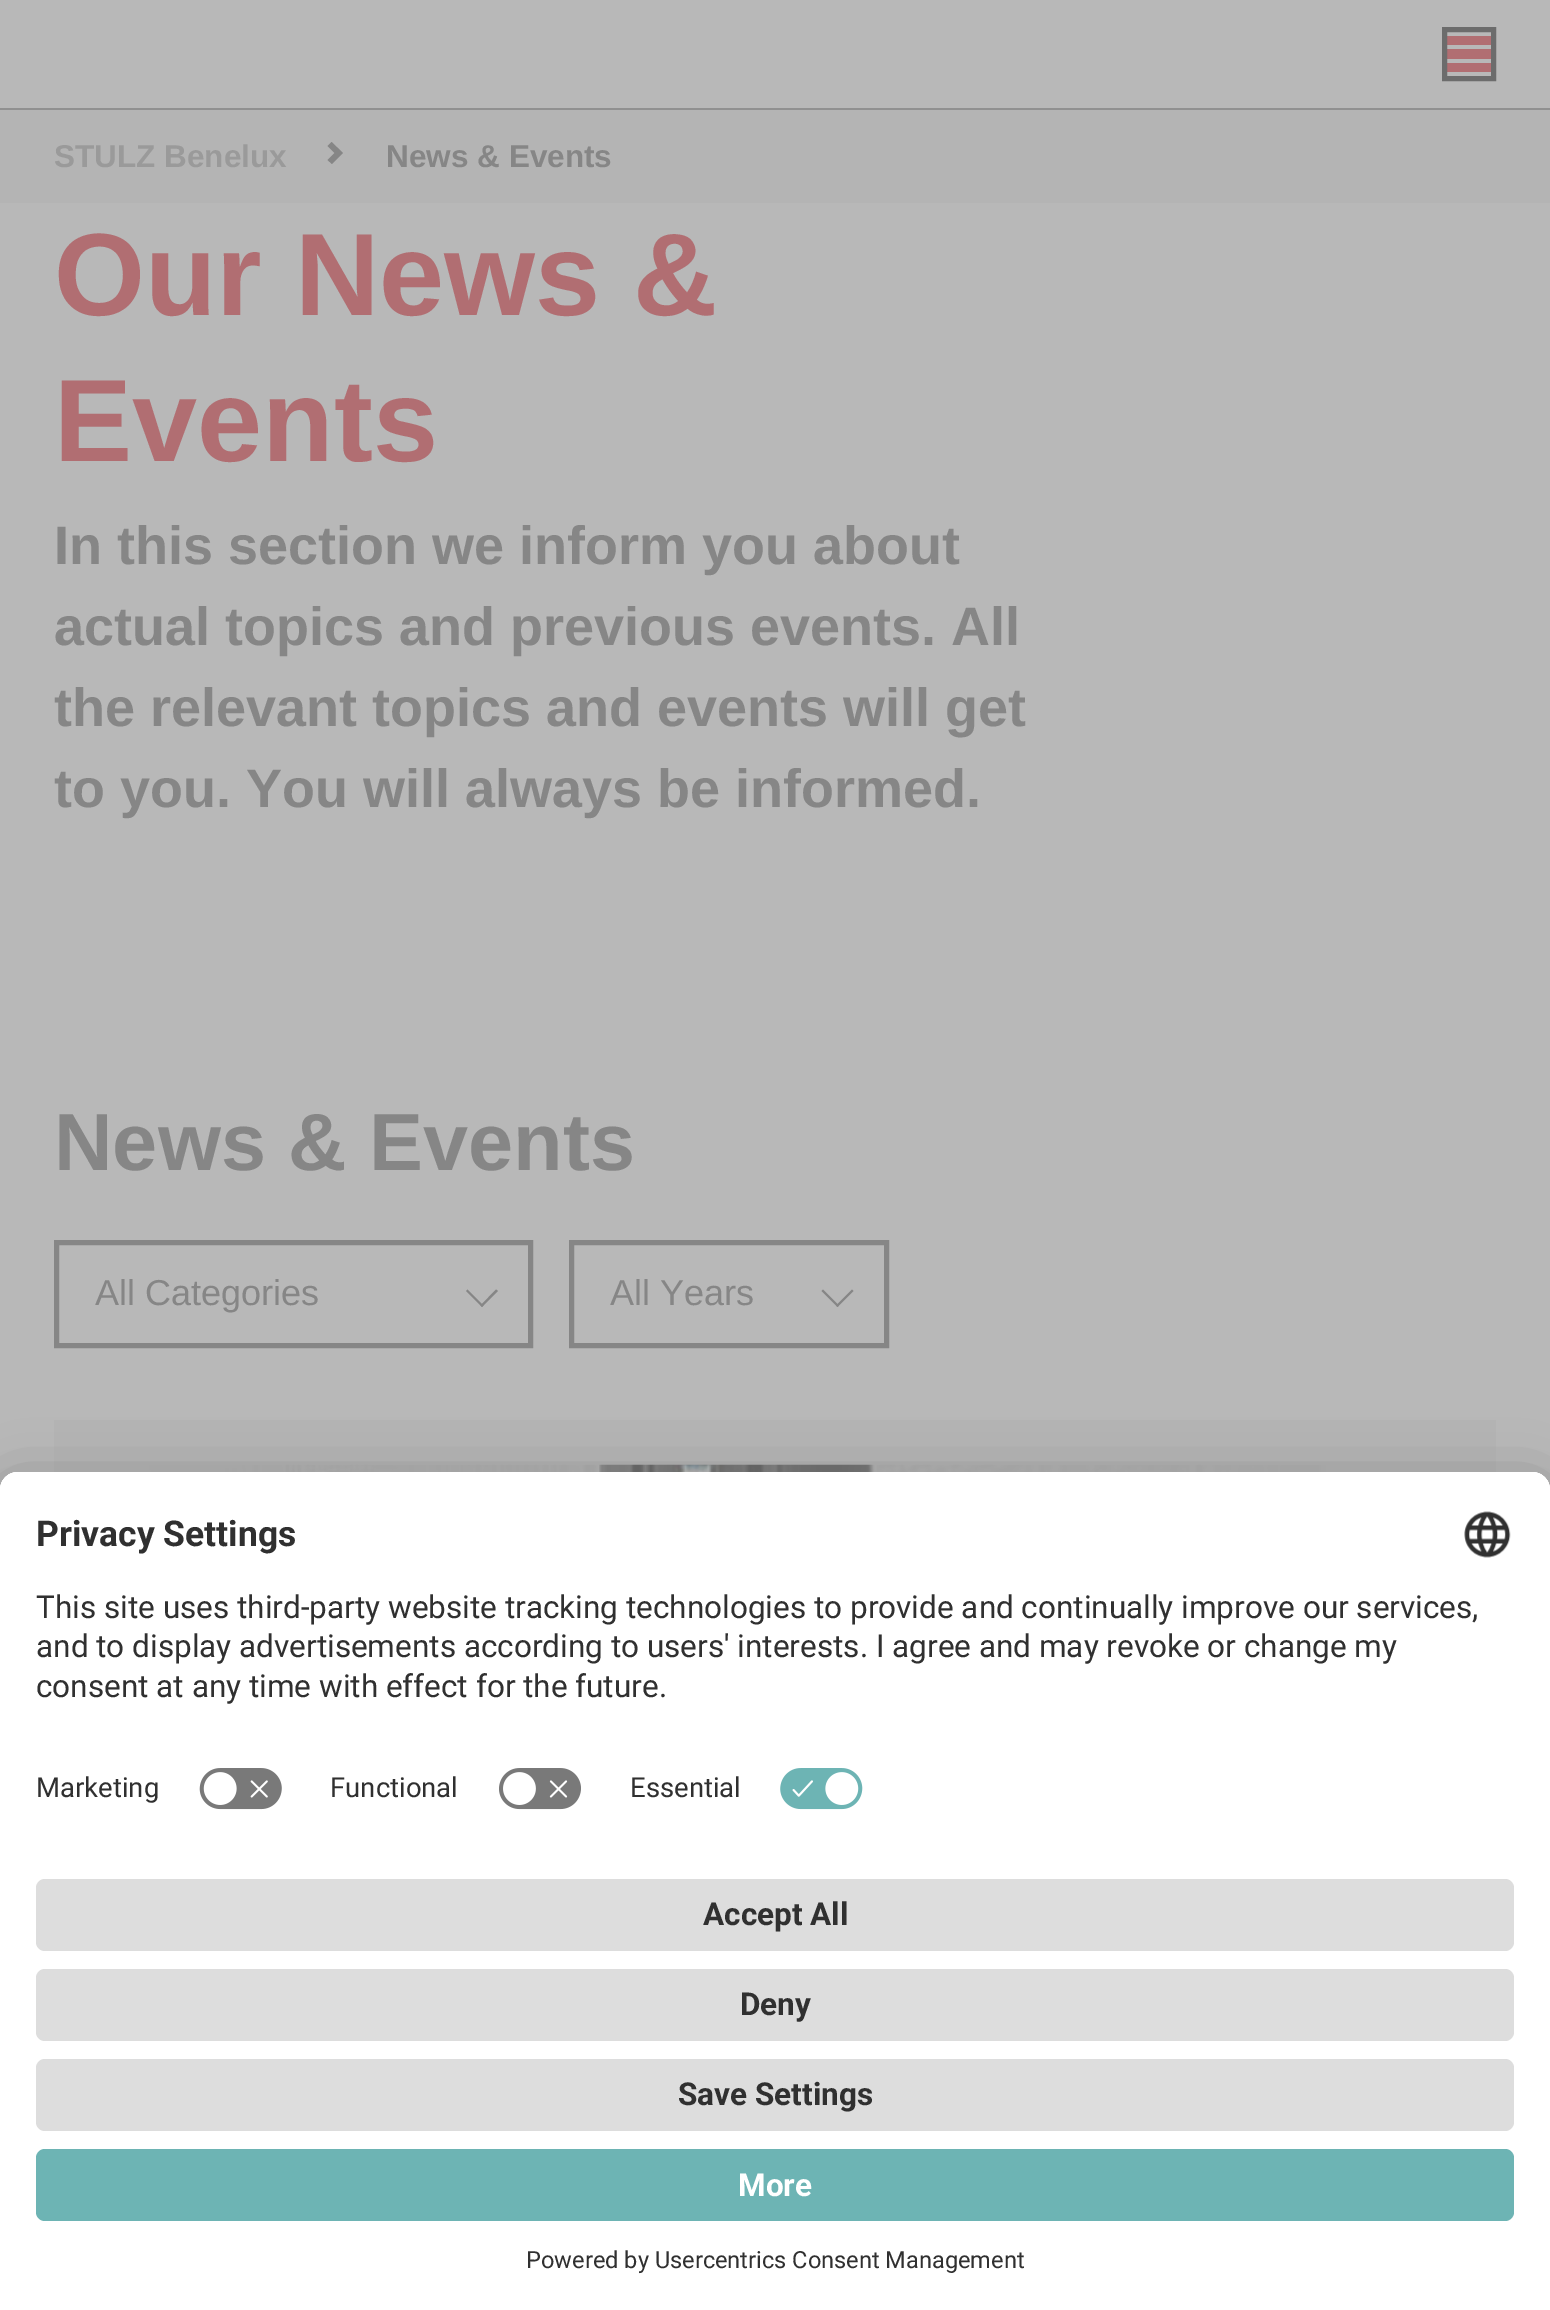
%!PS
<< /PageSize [1550 2310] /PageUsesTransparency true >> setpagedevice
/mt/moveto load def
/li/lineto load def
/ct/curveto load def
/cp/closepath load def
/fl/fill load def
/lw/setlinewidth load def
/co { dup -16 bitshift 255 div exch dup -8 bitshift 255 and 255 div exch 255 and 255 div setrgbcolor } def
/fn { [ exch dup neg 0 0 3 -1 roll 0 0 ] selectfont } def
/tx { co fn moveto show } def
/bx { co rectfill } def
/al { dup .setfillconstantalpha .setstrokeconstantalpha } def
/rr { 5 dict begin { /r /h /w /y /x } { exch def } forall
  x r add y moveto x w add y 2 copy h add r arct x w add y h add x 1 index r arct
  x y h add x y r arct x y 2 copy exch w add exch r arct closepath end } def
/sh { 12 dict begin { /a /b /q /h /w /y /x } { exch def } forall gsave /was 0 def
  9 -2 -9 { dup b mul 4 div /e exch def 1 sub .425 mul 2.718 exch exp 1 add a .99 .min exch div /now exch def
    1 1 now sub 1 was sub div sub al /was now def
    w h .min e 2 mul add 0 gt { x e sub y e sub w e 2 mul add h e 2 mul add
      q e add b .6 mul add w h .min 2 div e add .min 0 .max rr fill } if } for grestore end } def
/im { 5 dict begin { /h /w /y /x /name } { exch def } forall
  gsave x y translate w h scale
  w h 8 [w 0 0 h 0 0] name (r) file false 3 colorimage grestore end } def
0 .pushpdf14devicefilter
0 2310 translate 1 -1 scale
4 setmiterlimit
0 0 1550 2310 16#B8B8B8 bx
0 108 1550 2 16#909090 bx
16#B16E72 co
1445 68 mt 1445 63 li 1494 63 li 1494 72 li 1445 72 li cp 1445 54 mt 1445 49 li 1494 49 li 1494 59 li 1445 59 li cp 1445 41 mt 1445 36 li 1494 36 li 1494 45 li 1445 45 li cp fl
16#6C6C6C co
5 lw
1444.5 29.5 49 49 rectstroke
0 110 1550 93 16#B4B4B4 bx
16#868686 co
343 153 mt 332 164 li 327.5 160 li 334.5 153 li 327.5 146 li 331.5 142 li cp fl
56.5 1242.5 474 103 rectstroke
496 1289.5 mt 498 1291 li 482 1307 li 480.5 1305.5 li cp fl
467.5 1289.5 mt 483.5 1305.5 li 482 1307 li 466 1291 li cp fl
571.5 1242.5 315 103 rectstroke
852 1289.5 mt 853.5 1291 li 837.5 1307 li 836 1305.5 li cp fl
823 1289.5 mt 839 1305.5 li 837.5 1307 li 821.5 1291 li cp fl
54 1420 1442 52 16#B4B4B4 bx
(media/1.raw) 99 1464 1269 8 im
16#000000 co
0 1517 1550 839 18 31.5 .3 sh
0 1483 1550 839 18 29 .22 sh
16#FFFFFF co
18 1472 mt 1532 1472 li 1542 1472 1550 1480 1550 1490 ct 1550 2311 li 0 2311 li 0 1490 li 0 1480 8 1472 18 1472 ct cp fl
18 1472 mt 1532 1472 li 1542 1472 1550 1480 1550 1490 ct 1550 1852 li 0 1852 li 0 1490 li 0 1480 8 1472 18 1472 ct cp fl
18 1472 mt 1532 1472 li 1542 1472 1550 1480 1550 1490 ct 1550 1753 li 0 1753 li 0 1490 li 0 1480 8 1472 18 1472 ct cp fl
(media/2.raw) 1464 1511 47 47 im
(media/3.raw) 199 1768 83 42 im
(media/4.raw) 499 1768 82 42 im
(media/5.raw) 780 1768 83 42 im
16#DDDDDD co
36 1879 1478 72 9 rr fl
36 1969 1478 72 9 rr fl
36 2059 1478 72 9 rr fl
16#6DB4B4 co
36 2149 1478 72 9 rr fl
(STULZ Benelux) 54 167 /LiberationSans-Bold 31.5 16#9A9A9A tx
(News & Events) 386 167 /LiberationSans-Bold 31.5 16#868686 tx
(Our News &) 54 315 /LiberationSans-Bold 117 16#B16E72 tx
(Events) 54 461 /LiberationSans-Bold 117 16#B16E72 tx
(In this section we inform you about) 54 564 /LiberationSans-Bold 54 16#868686 tx
(actual topics and previous events. All) 54 645 /LiberationSans-Bold 54 16#868686 tx
(the relevant topics and events will get) 54 726 /LiberationSans-Bold 54 16#868686 tx
(to you. You will always be informed.) 54 807 /LiberationSans-Bold 54 16#868686 tx
(News & Events) 54 1170 /LiberationSans-Bold 81 16#868686 tx
(All Categories) 95 1305 /LiberationSans-Regular 36 16#868686 tx
(All Years) 610 1305 /LiberationSans-Regular 36 16#868686 tx
(Privacy Settings) 36 1546 /Roboto-Bold 35.5 16#303030 tx
(This site uses third-party website tracking technologies to provide and continually improve our services,) 36 1618 /Roboto-Regular 31.5 16#303030 tx
(and to display advertisements according to users' interests. I agree and may revoke or change my) 36 1657 /Roboto-Regular 31.5 16#303030 tx
(consent at any time with effect for the future.) 36 1697 /Roboto-Regular 31.5 16#303030 tx
(Marketing) 36 1797 /Roboto-Regular 27.5 16#303030 tx
(Functional) 330 1797 /Roboto-Regular 27.5 16#303030 tx
(Essential) 630 1797 /Roboto-Regular 27.5 16#303030 tx
(Accept All) 703 1925 /Roboto-Bold 31.5 16#303030 tx
(Deny) 740 2015 /Roboto-Bold 31.5 16#303030 tx
(Save Settings) 678 2105 /Roboto-Bold 31.5 16#303030 tx
(More) 738 2196 /Roboto-Bold 31.5 16#FFFFFF tx
(Powered by Usercentrics Consent Management) 526 2268 /Roboto-Regular 23.6 16#303030 tx
.poppdf14devicefilter showpage
